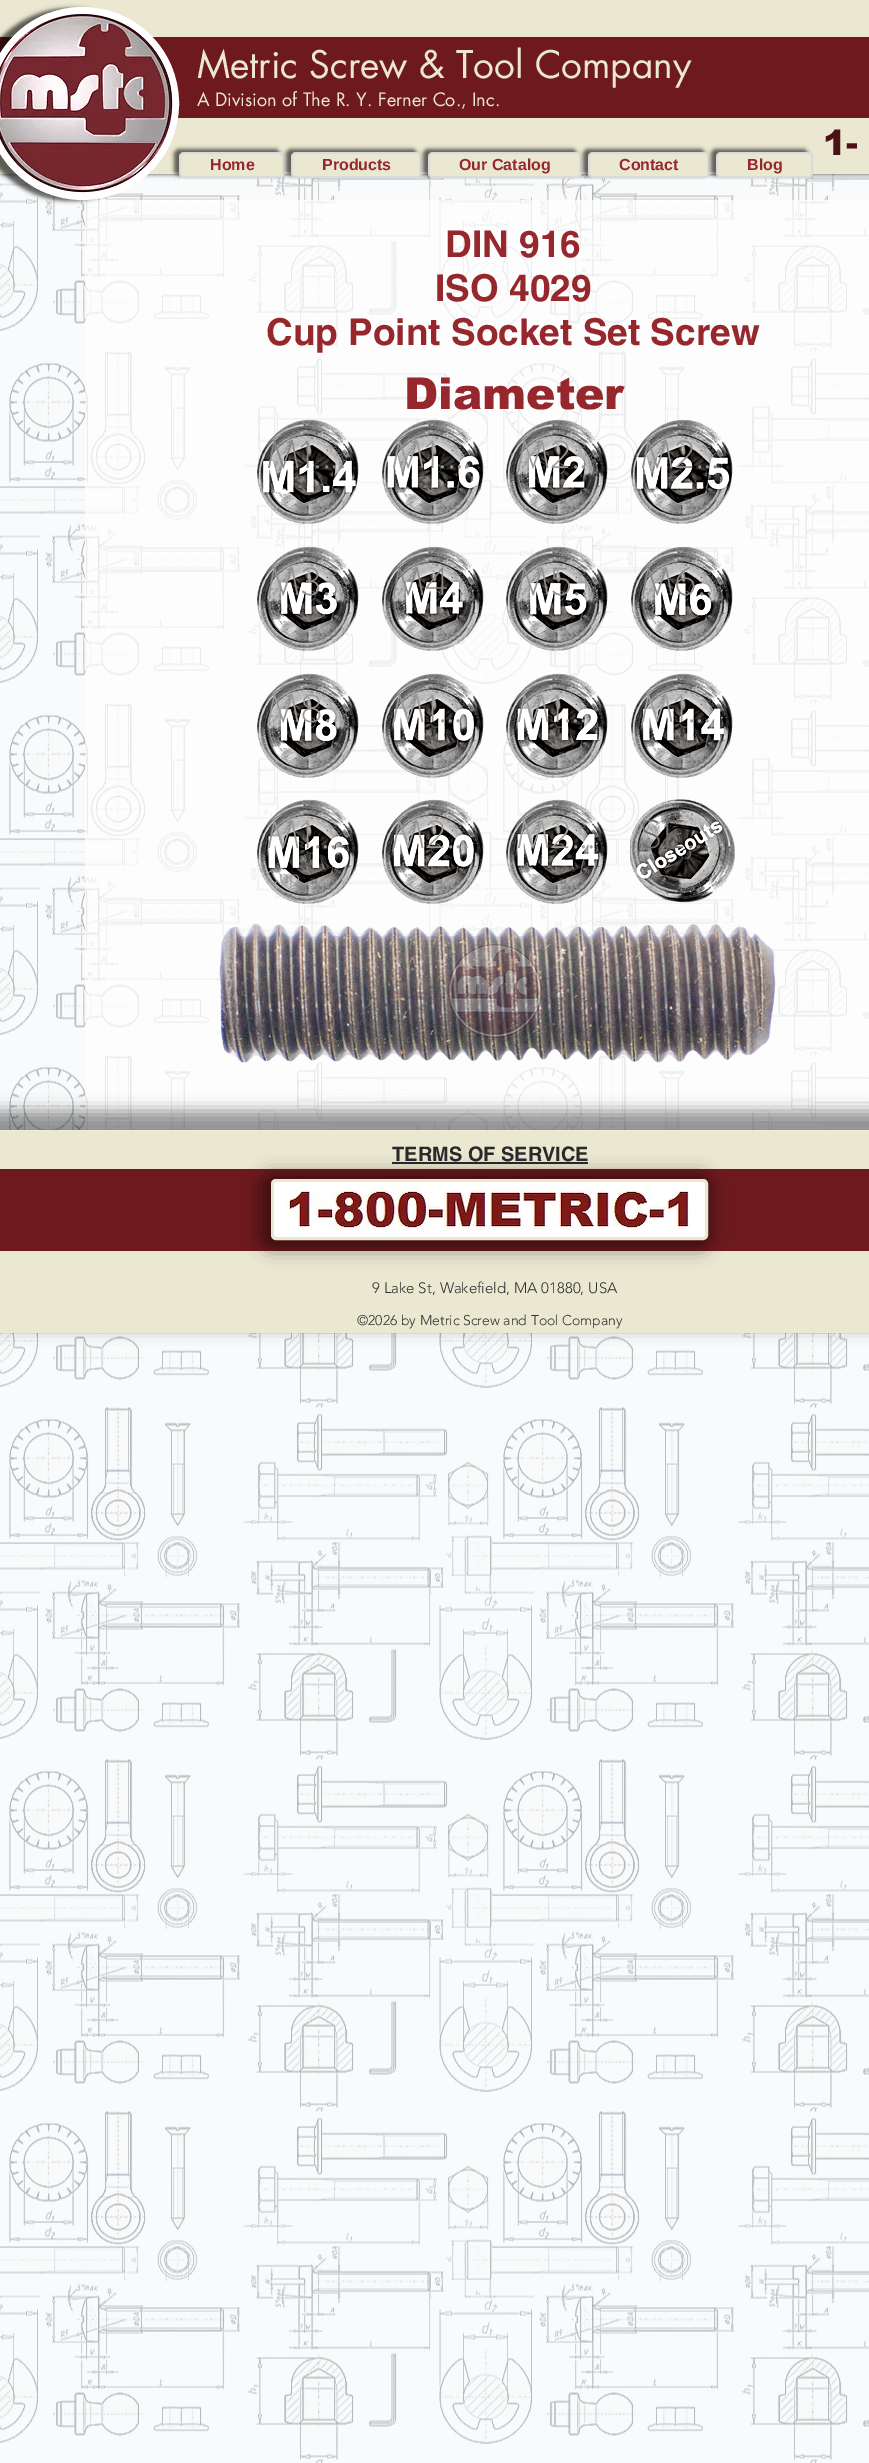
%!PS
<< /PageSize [869 2463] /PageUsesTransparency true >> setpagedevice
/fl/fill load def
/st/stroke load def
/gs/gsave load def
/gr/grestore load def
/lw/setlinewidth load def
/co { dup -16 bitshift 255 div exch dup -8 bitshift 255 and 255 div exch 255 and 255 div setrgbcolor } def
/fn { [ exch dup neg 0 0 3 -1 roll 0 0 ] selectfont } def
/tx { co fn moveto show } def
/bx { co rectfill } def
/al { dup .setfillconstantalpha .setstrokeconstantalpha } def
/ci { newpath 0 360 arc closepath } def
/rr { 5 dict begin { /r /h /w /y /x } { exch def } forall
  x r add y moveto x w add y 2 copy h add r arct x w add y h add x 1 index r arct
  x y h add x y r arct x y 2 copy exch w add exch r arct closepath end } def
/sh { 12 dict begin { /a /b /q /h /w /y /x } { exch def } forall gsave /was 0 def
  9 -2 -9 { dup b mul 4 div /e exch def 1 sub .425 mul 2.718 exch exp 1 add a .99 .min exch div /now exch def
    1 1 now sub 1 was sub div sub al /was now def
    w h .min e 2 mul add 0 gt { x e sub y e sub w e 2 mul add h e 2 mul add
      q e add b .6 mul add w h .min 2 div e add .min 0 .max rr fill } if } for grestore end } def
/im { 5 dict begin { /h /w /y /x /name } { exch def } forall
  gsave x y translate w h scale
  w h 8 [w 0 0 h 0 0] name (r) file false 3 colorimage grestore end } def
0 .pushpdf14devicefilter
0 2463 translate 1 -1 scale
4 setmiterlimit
0 0 869 2463 16#F5F8FA bx
(media/20.raw) 0 174 869 2289 im
16#000000 co
0 0 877 174 0 2.5 .7 sh
0 0 869 174 16#EBE8D1 bx
0 37 869 81 16#6E191E bx
0.69 al
85 200 784 930 16#FFFFFF bx
1 al
16#000000 co
-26 8 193 193 96.5 2 .6 sh
16#FFFFFF co
82.5 103.5 93.5 ci gs fl gr
6 lw
st
(media/1.raw) 0 13 173 181 im
16#000000 co
174 149 106 26 5 2 .6 sh
16#EBE8D1 co
180 153 104 24 4 rr gs fl gr
16#DBDBDB co
2 lw
st
16#000000 co
286 149 131 26 5 2 .6 sh
16#EBE8D1 co
292 153 129 24 4 rr gs fl gr
16#DBDBDB co
st
16#000000 co
423 149 154 26 5 2 .6 sh
16#EBE8D1 co
429 153 152 24 4 rr gs fl gr
16#DBDBDB co
st
16#000000 co
583 149 122 26 5 2 .6 sh
16#EBE8D1 co
589 153 120 24 4 rr gs fl gr
16#DBDBDB co
st
16#000000 co
711 149 97 26 5 2 .6 sh
16#EBE8D1 co
717 153 95 24 4 rr gs fl gr
16#DBDBDB co
st
(media/2.raw) 257 419 102 105 im
(media/3.raw) 382 419 102 105 im
(media/4.raw) 506 419 102 105 im
(media/5.raw) 631 419 102 105 im
(media/6.raw) 257 546 102 105 im
(media/7.raw) 382 546 102 105 im
(media/8.raw) 506 546 102 105 im
(media/9.raw) 631 546 102 105 im
(media/10.raw) 257 673 102 105 im
(media/11.raw) 382 673 102 105 im
(media/12.raw) 506 673 102 105 im
(media/13.raw) 631 673 102 105 im
(media/14.raw) 257 799 102 105 im
(media/15.raw) 382 799 102 105 im
(media/16.raw) 506 799 102 105 im
(media/17.raw) 630 799 105 104 im
(media/18.raw) 219 923 557 140 im
16#000000 co
-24 1111 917 217 0 8 .42 sh
0 1131 869 202 16#EBE8D1 bx
0 1130 869 1 16#EEEBD8 bx
392 1162 196 2 16#292929 bx
0 1169 869 82 16#6E191E bx
16#000000 co
260 1174 451 75 12 8.5 .46 sh
16#EBE8D1 co
3 lw
272.5 1180.5 434 58 3.5 rr st
(media/19.raw) 274 1182 431 55 im
(Metric Screw & Tool Company) 197 78 /futura-Regular 37 16#EBE8D1 tx
(A Division of The R. Y. Ferner Co., Inc.) 197 106 /futura-Regular 18 16#EBE8D1 tx
(1-) 823 155 /arial-Black 35 16#4B1317 tx
(Home) 210 170 /LiberationSans-Bold 16 16#96272D tx
(Products) 322 170 /LiberationSans-Bold 16 16#96272D tx
(Our Catalog) 459 170 /LiberationSans-Bold 16 16#96272D tx
(Contact) 619 170 /LiberationSans-Bold 16 16#96272D tx
(Blog) 747 170 /LiberationSans-Bold 16 16#96272D tx
(DIN 916) 445 257 /helvetica-Bold 37 16#96272D tx
(ISO 4029) 435 301 /helvetica-Bold 37 16#96272D tx
(Cup Point Socket Set Screw) 266 345 /helvetica-Bold 37 16#96272D tx
(Diameter) 404 409 /arial-Black 44 16#96272D tx
(M1.…) 266 468 /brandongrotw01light-Light 40 16#8A8988 tx
(M1.…) 391 468 /brandongrotw01light-Light 40 16#9A9997 tx
(M2…) 516 468 /brandongrotw01light-Light 40 16#9A9997 tx
(M2…) 640 468 /brandongrotw01light-Light 40 16#929190 tx
(M3…) 266 595 /brandongrotw01light-Light 40 16#929190 tx
(M4…) 391 595 /brandongrotw01light-Light 40 16#8A8988 tx
(M5…) 516 595 /brandongrotw01light-Light 40 16#929190 tx
(M6…) 640 595 /brandongrotw01light-Light 40 16#8A8988 tx
(M8…) 266 722 /brandongrotw01light-Light 40 16#9A9997 tx
(M1…) 391 722 /brandongrotw01light-Light 40 16#9A9997 tx
(M1…) 516 722 /brandongrotw01light-Light 40 16#9A9997 tx
(M1…) 640 722 /brandongrotw01light-Light 40 16#A09F9E tx
(M1…) 266 848 /brandongrotw01light-Light 40 16#9A9997 tx
(Cup) 266 883 /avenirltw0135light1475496-Light 18 16#9A9997 tx
(M2…) 391 848 /brandongrotw01light-Light 40 16#9A9997 tx
(M2…) 516 848 /brandongrotw01light-Light 40 16#A09F9E tx
(SE…) 640 848 /brandongrotw01light-Light 40 16#6C6B6A tx
(TERMS OF SERVICE) 392 1161 /helvetica-Bold 20 16#292929 tx
(9 Lake St, Wakefield, MA 01880, USA) 372 1293 /avenirltw0135light1475496-Light 15 16#303030 tx
(©2026 by Metric Screw and Tool Company) 357 1325 /avenirltw0135light1475496-Light 14 16#303030 tx
.poppdf14devicefilter showpage
